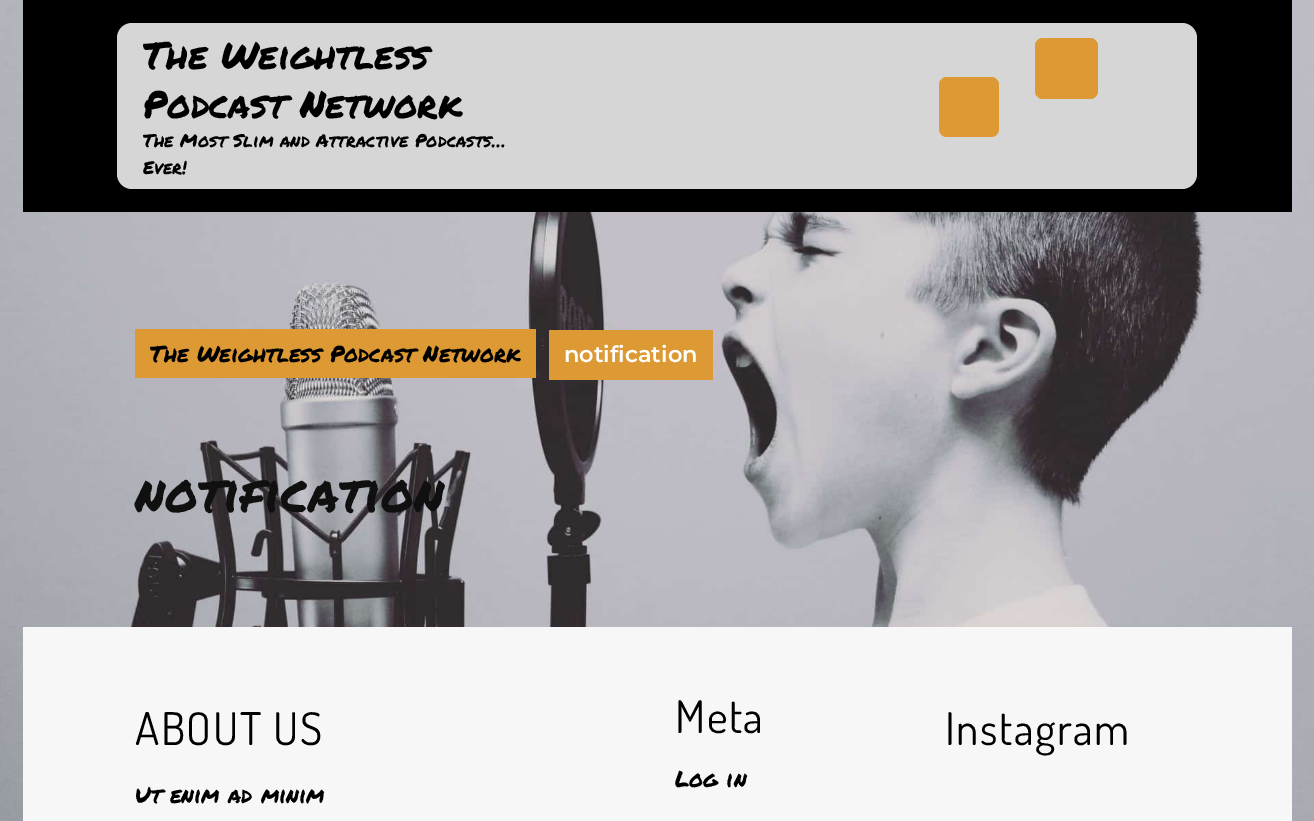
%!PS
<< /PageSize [1314 821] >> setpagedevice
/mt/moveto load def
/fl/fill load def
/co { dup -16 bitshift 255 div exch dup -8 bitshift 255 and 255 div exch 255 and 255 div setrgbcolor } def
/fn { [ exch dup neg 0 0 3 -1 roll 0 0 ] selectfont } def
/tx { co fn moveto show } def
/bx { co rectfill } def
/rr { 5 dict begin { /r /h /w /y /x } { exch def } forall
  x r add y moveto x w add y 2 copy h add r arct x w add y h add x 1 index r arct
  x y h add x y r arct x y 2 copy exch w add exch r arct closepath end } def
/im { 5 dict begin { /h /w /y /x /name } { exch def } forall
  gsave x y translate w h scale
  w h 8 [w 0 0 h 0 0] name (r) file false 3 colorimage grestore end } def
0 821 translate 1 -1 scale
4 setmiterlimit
0 0 1314 821 16#FFFFFF bx
(media/1.raw) 0 0 1314 821 im
23 0 1269 212 16#000000 bx
16#D6D6D6 co
117 23 1080 166 15 rr fl
16#DD9933 co
939 77 60 60 8 rr fl
1035 38 63 61 8 rr fl
135 329 401 49 16#DD9933 bx
549 330 164 50 16#DD9933 bx
23 627 1269 194 16#F7F7F7 bx
(The Weightless) 143 69 /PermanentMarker-Regular 37.5 16#000000 tx
(Podcast Network) 143 118 /PermanentMarker-Regular 37.5 16#000000 tx
(The Most Slim and Attractive Podcasts…) 143 147 /PermanentMarker-Regular 18 16#000000 tx
(Ever!) 143 174 /PermanentMarker-Regular 18 16#000000 tx
(The Weightless Podcast Network) 150 362 /PermanentMarker-Regular 22.5 16#000000 tx
(notification) 564 362 /Montserrat-SemiBold 22.5 16#FFFFFF tx
(notification) 135 512 /PermanentMarker-Regular 52.75 16#101010 tx
/Dosis-Regular 45 fn
16#000000 co
135 745 mt 1.5 0 (ABOUT US) ashow
(Ut enim ad minim) 135 803 /PermanentMarker-Regular 22.5 16#000000 tx
/Dosis-Regular 45 fn
675 733 mt 1.5 0 (Meta) ashow
(Log in) 675 787 /PermanentMarker-Regular 22.5 16#000000 tx
/Dosis-Regular 45 fn
945 745 mt 1.5 0 (Instagram) ashow
showpage
